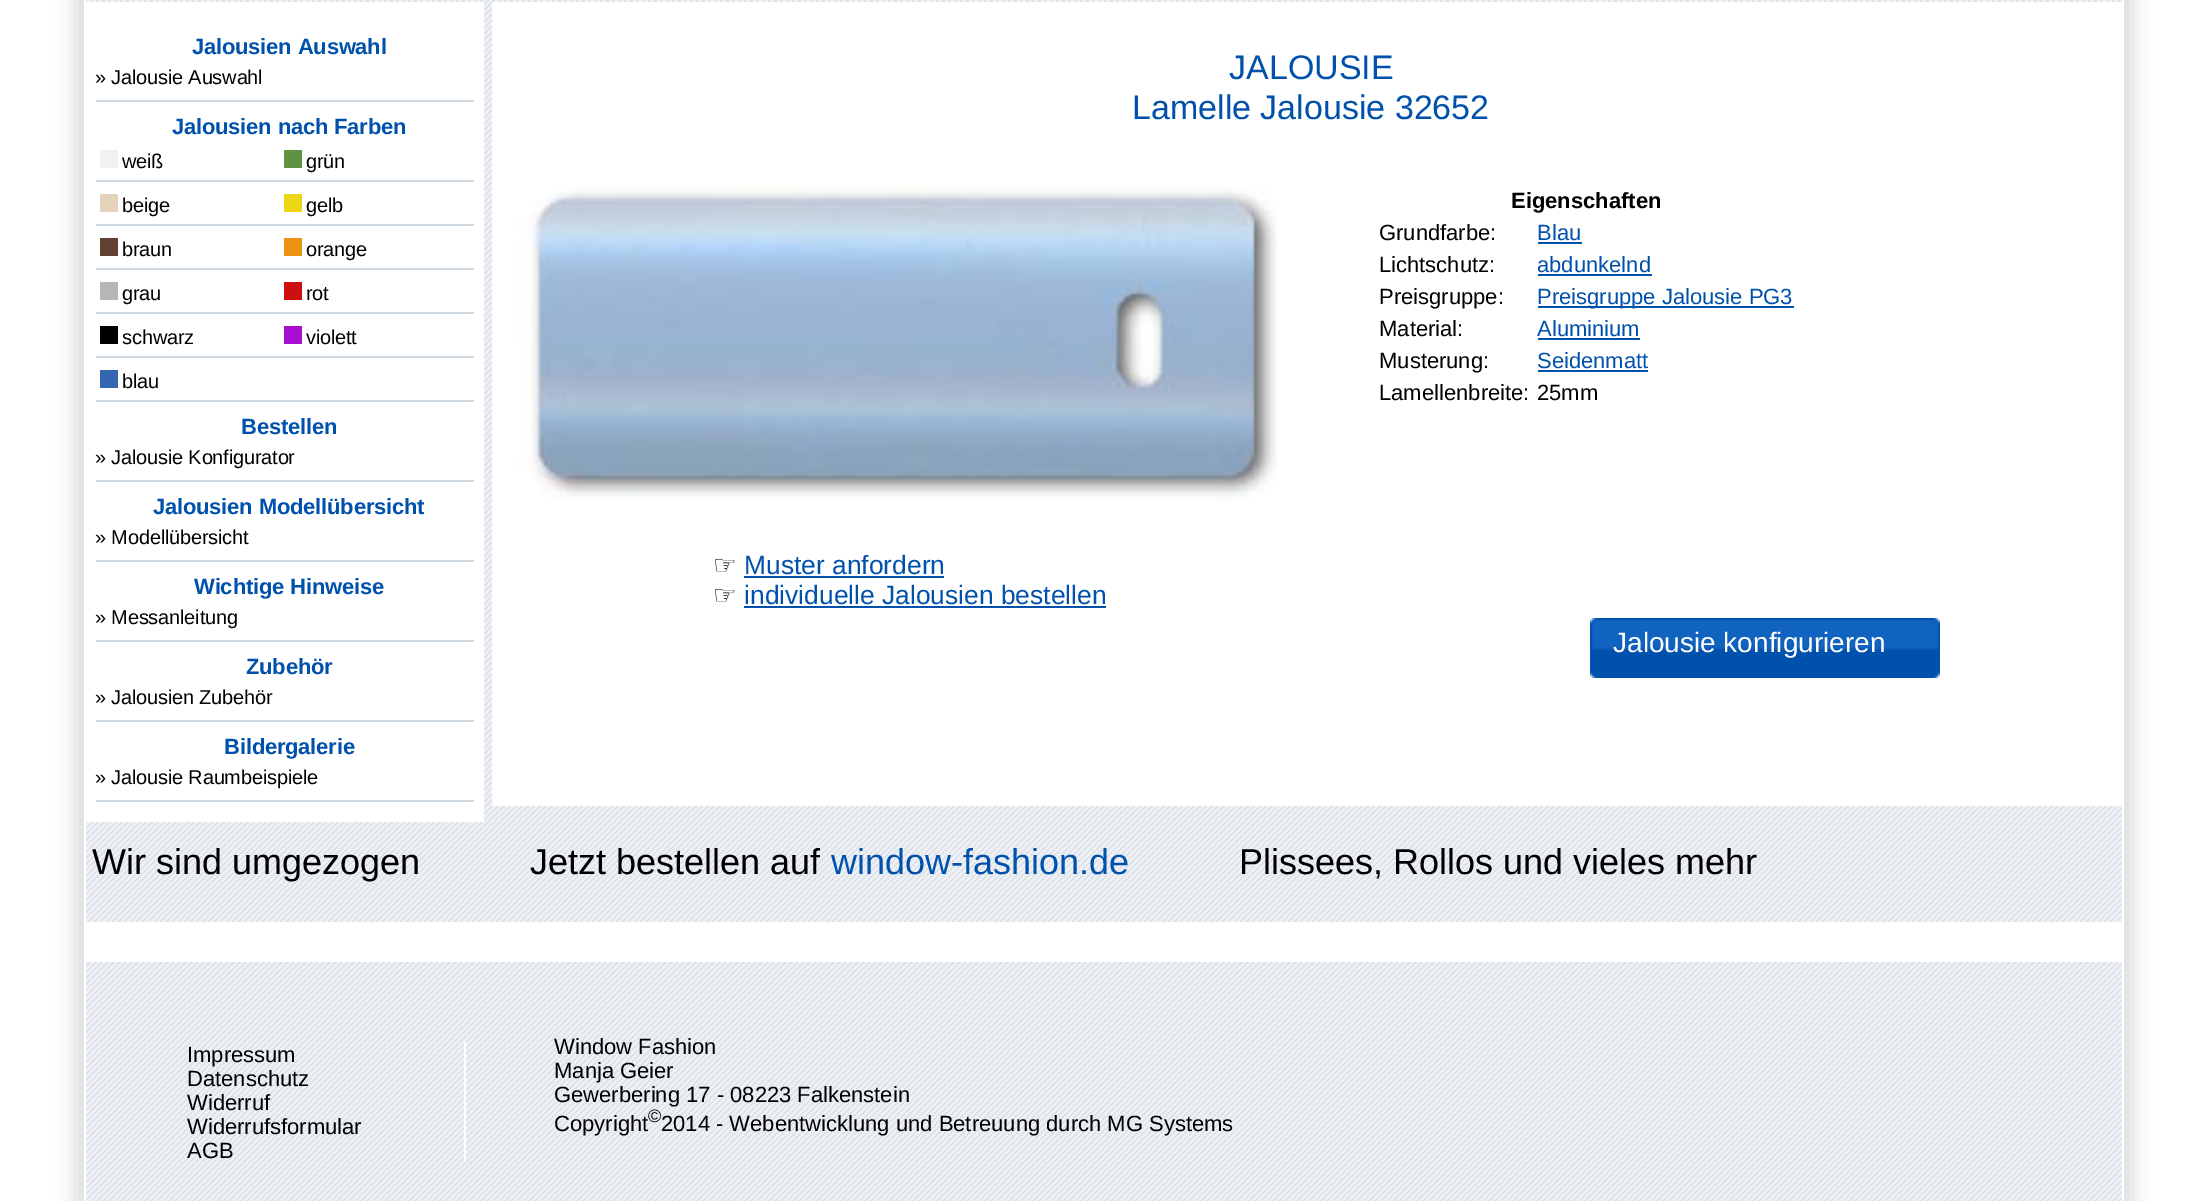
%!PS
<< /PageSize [2205 1201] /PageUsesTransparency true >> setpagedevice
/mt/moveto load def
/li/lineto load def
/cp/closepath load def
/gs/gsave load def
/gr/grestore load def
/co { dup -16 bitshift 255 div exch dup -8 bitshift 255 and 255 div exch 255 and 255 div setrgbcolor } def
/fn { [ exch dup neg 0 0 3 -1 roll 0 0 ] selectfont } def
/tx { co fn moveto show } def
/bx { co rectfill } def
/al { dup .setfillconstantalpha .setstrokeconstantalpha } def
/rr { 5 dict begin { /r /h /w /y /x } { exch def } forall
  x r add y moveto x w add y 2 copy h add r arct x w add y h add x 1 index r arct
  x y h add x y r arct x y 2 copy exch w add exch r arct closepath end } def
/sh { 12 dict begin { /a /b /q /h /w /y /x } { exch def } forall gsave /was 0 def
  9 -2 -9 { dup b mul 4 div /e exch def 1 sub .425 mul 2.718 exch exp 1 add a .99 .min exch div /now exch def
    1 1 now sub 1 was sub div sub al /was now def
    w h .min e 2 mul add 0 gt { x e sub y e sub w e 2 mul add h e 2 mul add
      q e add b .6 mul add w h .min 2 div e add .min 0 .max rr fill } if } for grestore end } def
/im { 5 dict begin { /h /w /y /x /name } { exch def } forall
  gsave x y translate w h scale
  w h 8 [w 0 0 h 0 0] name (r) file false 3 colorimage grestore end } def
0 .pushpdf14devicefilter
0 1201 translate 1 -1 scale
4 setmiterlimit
0 0 2205 1201 16#FFFFFF bx
gs
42 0 mt 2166 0 li 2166 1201 li 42 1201 li cp 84 -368 mt 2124 -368 li 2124 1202 li 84 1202 li cp eoclip newpath
16#000000 co
76 -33 2056 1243 0 11 .15 sh
gr
(media/1.raw) 86 0 2036 1201 im
86 2 398 820 16#FFFFFF bx
96 100 378 2 16#D0D8E2 bx
100 150 18 18 16#F1F1F1 bx
284 150 18 18 16#609341 bx
96 180 378 2 16#D0D8E2 bx
100 194 18 18 16#E4D3BA bx
284 194 18 18 16#ECD514 bx
96 224 378 2 16#D0D8E2 bx
100 238 18 18 16#624034 bx
284 238 18 18 16#EC9314 bx
96 268 378 2 16#D0D8E2 bx
100 282 18 18 16#B6B6B6 bx
284 282 18 18 16#CE0F0F bx
96 312 378 2 16#D0D8E2 bx
100 326 18 18 16#000000 bx
284 326 18 18 16#A80FCE bx
96 356 378 2 16#D0D8E2 bx
100 370 18 18 16#3466B2 bx
96 400 378 2 16#D0D8E2 bx
96 480 378 2 16#D0D8E2 bx
96 560 378 2 16#D0D8E2 bx
96 640 378 2 16#D0D8E2 bx
96 720 378 2 16#D0D8E2 bx
96 800 378 2 16#D0D8E2 bx
492 2 1630 804 16#FFFFFF bx
1538 242 44 2 16#0051AC bx
1538 274 114 2 16#0051AC bx
1538 306 256 2 16#0051AC bx
1538 338 102 2 16#0051AC bx
1538 370 110 2 16#0051AC bx
(media/2.raw) 518 186 760 316 im
744 576 200 2 16#0051AC bx
744 606 362 2 16#0051AC bx
(media/3.raw) 1590 618 350 60 im
86 922 2036 40 16#FFFFFF bx
464 1042 2 120 16#FFFFFF bx
/LiberationSans-Bold 22 fn
16#0051AC co
192 54 mt -.2 0 (Jalousien Auswahl) ashow
/LiberationSans-Regular 20 fn
16#000000 co
95 84 mt -.2 0 (» Jalousie Auswahl) ashow
/LiberationSans-Bold 22 fn
16#0051AC co
172 134 mt -.2 0 (Jalousien nach Farben) ashow
/LiberationSans-Regular 20 fn
16#000000 co
122 168 mt -.2 0 (weiß) ashow
306 168 mt -.2 0 (grün) ashow
122 212 mt -.2 0 (beige) ashow
306 212 mt -.2 0 (gelb) ashow
122 256 mt -.2 0 (braun) ashow
306 256 mt -.2 0 (orange) ashow
122 300 mt -.2 0 (grau) ashow
306 300 mt -.2 0 (rot) ashow
122 344 mt -.2 0 (schwarz) ashow
306 344 mt -.2 0 (violett) ashow
122 388 mt -.2 0 (blau) ashow
/LiberationSans-Bold 22 fn
16#0051AC co
241 434 mt -.2 0 (Bestellen) ashow
/LiberationSans-Regular 20 fn
16#000000 co
95 464 mt -.2 0 (» Jalousie Konfigurator) ashow
/LiberationSans-Bold 22 fn
16#0051AC co
153 514 mt -.2 0 (Jalousien Modellübersicht) ashow
/LiberationSans-Regular 20 fn
16#000000 co
95 544 mt -.2 0 (» Modellübersicht) ashow
/LiberationSans-Bold 22 fn
16#0051AC co
194 594 mt -.2 0 (Wichtige Hinweise) ashow
/LiberationSans-Regular 20 fn
16#000000 co
95 624 mt -.2 0 (» Messanleitung) ashow
/LiberationSans-Bold 22 fn
16#0051AC co
246 674 mt -.2 0 (Zubehör) ashow
/LiberationSans-Regular 20 fn
16#000000 co
95 704 mt -.2 0 (» Jalousien Zubehör) ashow
/LiberationSans-Bold 22 fn
16#0051AC co
224 754 mt -.2 0 (Bildergalerie) ashow
/LiberationSans-Regular 20 fn
16#000000 co
95 784 mt -.2 0 (» Jalousie Raumbeispiele) ashow
(JALOUSIE) 1229 79 /LiberationSans-Regular 34 16#0051AC tx
(Lamelle Jalousie 32652) 1132 119 /LiberationSans-Regular 34 16#0051AC tx
(Eigenschaften) 1511 208 /LiberationSans-Bold 22 16#000000 tx
(Grundfarbe:) 1379 240 /LiberationSans-Regular 22 16#000000 tx
(Blau) 1537 240 /LiberationSans-Regular 22 16#0051AC tx
(Lichtschutz:) 1379 272 /LiberationSans-Regular 22 16#000000 tx
(abdunkelnd) 1537 272 /LiberationSans-Regular 22 16#0051AC tx
(Preisgruppe:) 1379 304 /LiberationSans-Regular 22 16#000000 tx
(Preisgruppe Jalousie PG3) 1537 304 /LiberationSans-Regular 22 16#0051AC tx
(Material:) 1379 336 /LiberationSans-Regular 22 16#000000 tx
(Aluminium) 1537 336 /LiberationSans-Regular 22 16#0051AC tx
(Musterung:) 1379 368 /LiberationSans-Regular 22 16#000000 tx
(Seidenmatt) 1537 368 /LiberationSans-Regular 22 16#0051AC tx
(Lamellenbreite:) 1379 400 /LiberationSans-Regular 22 16#000000 tx
(25mm) 1537 400 /LiberationSans-Regular 22 16#000000 tx
(☞) 713 574 /DejaVuSans-Regular 26.4 16#000000 tx
(Muster anfordern) 744 574 /LiberationSans-Regular 26.4 16#0051AC tx
(☞) 713 604 /DejaVuSans-Regular 26.4 16#000000 tx
(individuelle Jalousien bestellen) 744 604 /LiberationSans-Regular 26.4 16#0051AC tx
(Jalousie konfigurieren) 1613 652 /LiberationSans-Regular 28 16#FFFFFF tx
(Wir sind umgezogen           Jetzt bestellen auf) 92 874 /LiberationSans-Regular 36 16#000000 tx
(window-fashion.de) 831 874 /LiberationSans-Regular 36 16#0051AC tx
(Plissees, Rollos und vieles mehr) 1239 874 /LiberationSans-Regular 36 16#000000 tx
(Impressum) 187 1062 /LiberationSans-Regular 22 16#000000 tx
(Datenschutz) 187 1086 /LiberationSans-Regular 22 16#000000 tx
(Widerruf) 187 1110 /LiberationSans-Regular 22 16#000000 tx
(Widerrufsformular) 187 1134 /LiberationSans-Regular 22 16#000000 tx
(AGB) 187 1158 /LiberationSans-Regular 22 16#000000 tx
(Window Fashion) 554 1054 /LiberationSans-Regular 22 16#000000 tx
(Manja Geier) 554 1078 /LiberationSans-Regular 22 16#000000 tx
(Gewerbering 17 - 08223 Falkenstein) 554 1102 /LiberationSans-Regular 22 16#000000 tx
(Copyright) 554 1131 /LiberationSans-Regular 22 16#000000 tx
(©) 648 1122 /LiberationSans-Regular 18 16#000000 tx
(2014 - Webentwicklung und Betreuung durch MG Systems) 661 1131 /LiberationSans-Regular 22 16#000000 tx
.poppdf14devicefilter showpage
